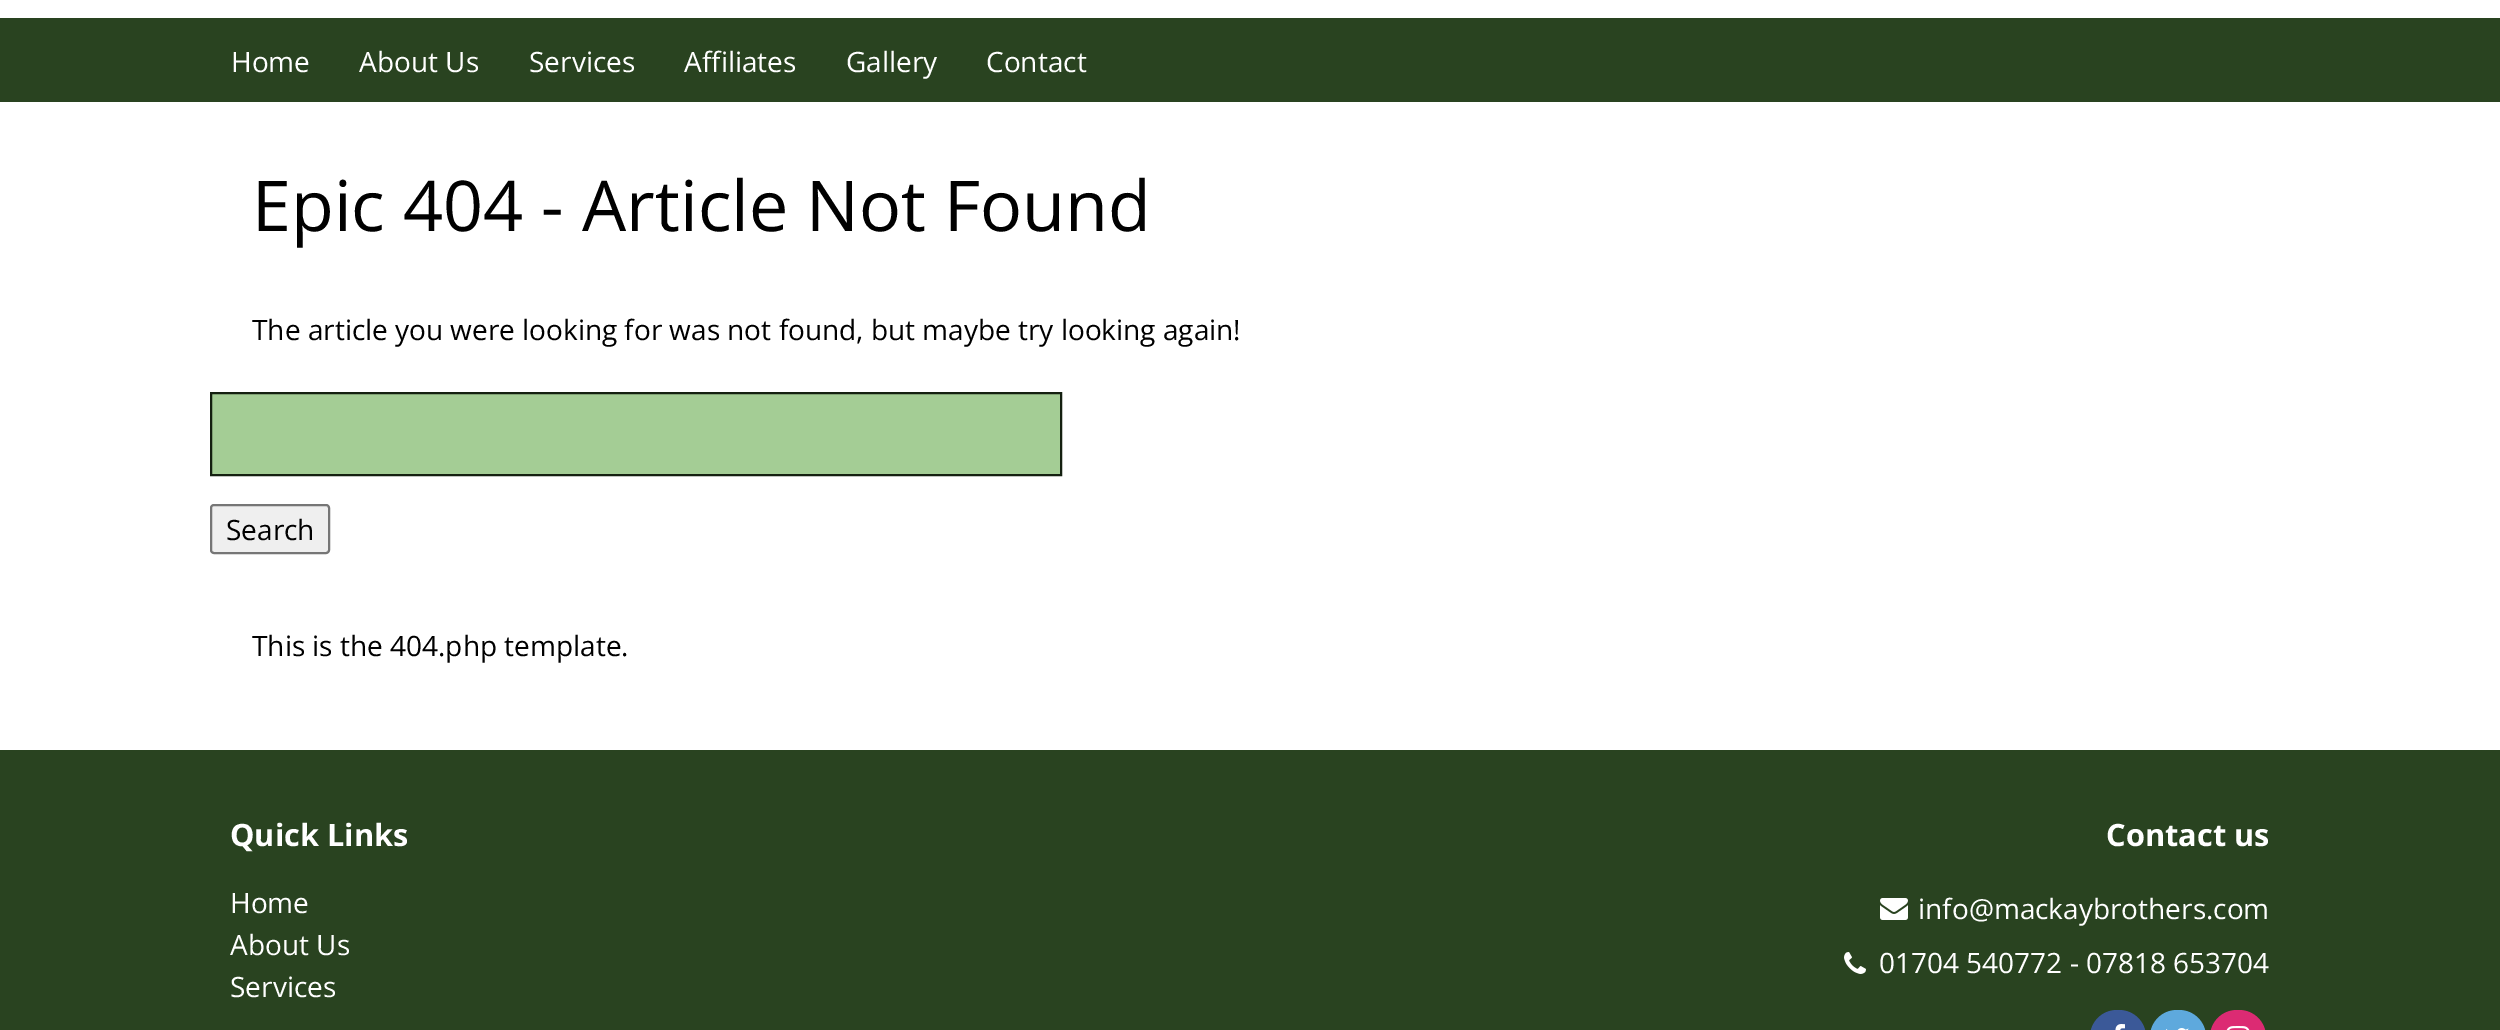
%!PS
<< /PageSize [2500 1030] >> setpagedevice
/mt/moveto load def
/li/lineto load def
/cp/closepath load def
/fl/fill load def
/st/stroke load def
/gs/gsave load def
/gr/grestore load def
/lw/setlinewidth load def
/co { dup -16 bitshift 255 div exch dup -8 bitshift 255 and 255 div exch 255 and 255 div setrgbcolor } def
/fn { [ exch dup neg 0 0 3 -1 roll 0 0 ] selectfont } def
/tx { co fn moveto show } def
/bx { co rectfill } def
/rr { 5 dict begin { /r /h /w /y /x } { exch def } forall
  x r add y moveto x w add y 2 copy h add r arct x w add y h add x 1 index r arct
  x y h add x y r arct x y 2 copy exch w add exch r arct closepath end } def
/im { 5 dict begin { /h /w /y /x /name } { exch def } forall
  gsave x y translate w h scale
  w h 8 [w 0 0 h 0 0] name (r) file false 3 colorimage grestore end } def
0 1030 translate 1 -1 scale
4 setmiterlimit
0 0 2500 1030 16#FFFFFF bx
0 18 2500 84 16#294320 bx
16#A4CD95 co
211 393 mt 1061 393 li 1061 475 li 211 475 li cp gs fl gr
16#142010 co
2 lw
st
16#EFEFEF co
211 505 118 48 3 rr gs fl gr
16#767676 co
st
0 750 2500 280 16#294320 bx
(media/1.raw) 1880 898 28 22 im
(media/2.raw) 1844 952 22 22 im
16#3B5998 co
2090 1010 56 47 27 rr fl
(media/3.raw) 2115 1024 10 6 im
16#5EA9DD co
2150 1010 56 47 27 rr fl
(media/4.raw) 2166 1028 23 2 im
16#DC2B73 co
2210 1010 56 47 27 rr fl
(media/5.raw) 2226 1026 24 4 im
(Home) 231 72 /OpenSans-Regular 28 16#FFFFFF tx
(About Us) 359 72 /OpenSans-Regular 28 16#FFFFFF tx
(Services) 529 72 /OpenSans-Regular 28 16#FFFFFF tx
(Affiliates) 684 72 /OpenSans-Regular 28 16#FFFFFF tx
(Gallery) 846 72 /OpenSans-Regular 28 16#FFFFFF tx
(Contact) 986 72 /OpenSans-Regular 28 16#FFFFFF tx
(Epic 404 - Article Not Found) 252 231 /OpenSans-Regular 70 16#000000 tx
(The article you were looking for was not found, but maybe try looking again!) 252 340 /OpenSans-Regular 28 16#000000 tx
(Search) 226 540 /OpenSans-Regular 28 16#000000 tx
(This is the 404.php template.) 252 656 /OpenSans-Regular 28 16#000000 tx
(Quick Links) 230 846 /OpenSans-Bold 30.75 16#FFFFFF tx
(Home) 230 913 /OpenSans-Regular 28 16#FFFFFF tx
(About Us) 230 955 /OpenSans-Regular 28 16#FFFFFF tx
(Services) 230 997 /OpenSans-Regular 28 16#FFFFFF tx
(Contact us) 2106 846 /OpenSans-Bold 30.75 16#FFFFFF tx
(info@mackaybrothers.com) 1918 919 /OpenSans-Regular 28 16#FFFFFF tx
(01704 540772 - 07818 653704) 1879 973 /OpenSans-Regular 28 16#FFFFFF tx
showpage
